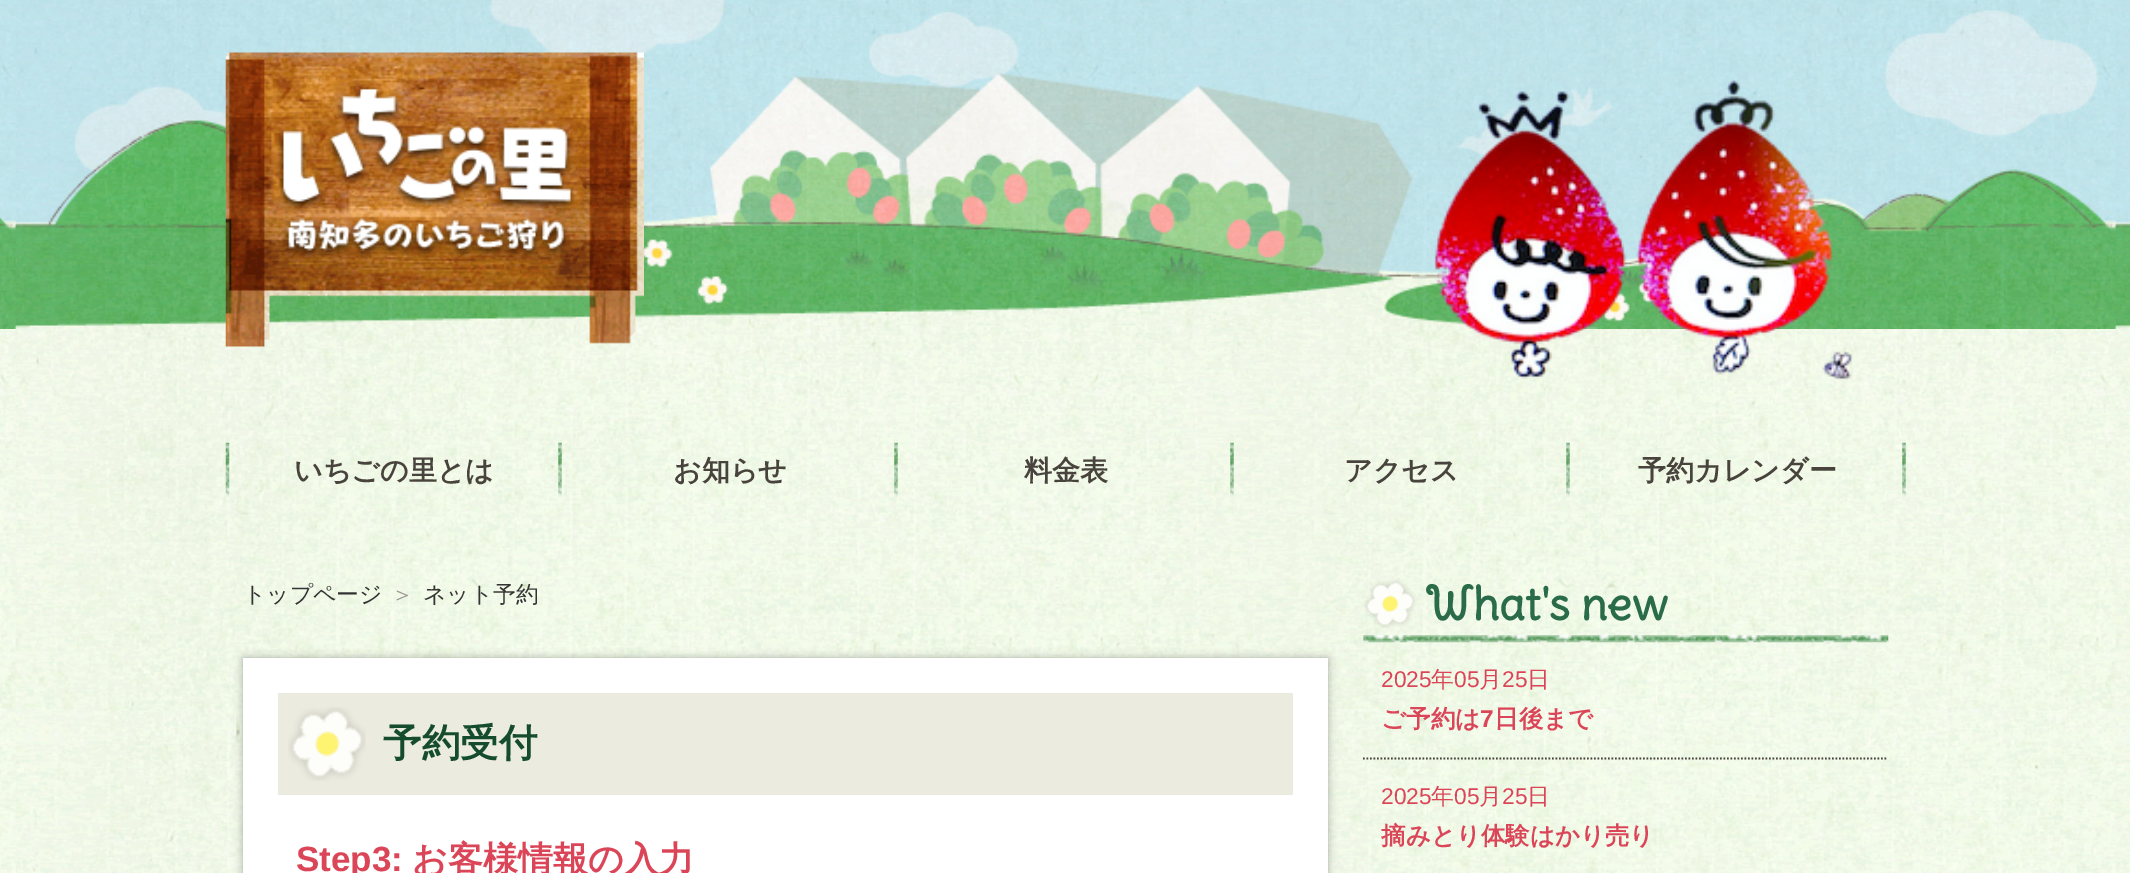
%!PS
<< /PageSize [2130 873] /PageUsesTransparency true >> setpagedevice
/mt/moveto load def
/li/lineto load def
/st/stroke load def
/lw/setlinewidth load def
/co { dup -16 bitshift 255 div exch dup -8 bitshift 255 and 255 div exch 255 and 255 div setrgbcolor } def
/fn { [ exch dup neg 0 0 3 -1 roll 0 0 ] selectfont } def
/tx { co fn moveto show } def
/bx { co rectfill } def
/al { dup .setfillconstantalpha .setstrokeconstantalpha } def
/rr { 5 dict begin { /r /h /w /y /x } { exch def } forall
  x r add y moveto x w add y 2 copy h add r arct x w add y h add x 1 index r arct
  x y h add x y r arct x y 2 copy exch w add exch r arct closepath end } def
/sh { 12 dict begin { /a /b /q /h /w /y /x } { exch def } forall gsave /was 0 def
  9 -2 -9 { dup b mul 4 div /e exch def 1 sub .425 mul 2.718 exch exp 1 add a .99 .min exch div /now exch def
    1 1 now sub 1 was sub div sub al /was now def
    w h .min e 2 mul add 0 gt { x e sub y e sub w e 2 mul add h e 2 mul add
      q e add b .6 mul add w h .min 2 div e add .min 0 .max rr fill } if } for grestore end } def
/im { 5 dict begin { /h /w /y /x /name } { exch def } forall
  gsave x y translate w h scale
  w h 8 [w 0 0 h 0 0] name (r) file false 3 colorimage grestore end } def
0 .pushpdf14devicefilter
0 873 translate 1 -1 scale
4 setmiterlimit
0 0 2130 873 16#FFFFFF bx
(media/1.raw) 0 197 2130 676 im
(media/2.raw) 0 0 2130 329 im
(media/3.raw) 225 52 419 295 im
(media/4.raw) 1434 80 419 300 im
(media/5.raw) 225 442 5 55 im
(media/6.raw) 558 442 4 55 im
(media/7.raw) 894 442 4 55 im
(media/8.raw) 1230 442 4 55 im
(media/9.raw) 1566 442 4 55 im
(media/10.raw) 1902 442 4 55 im
16#000000 co
243 658 1085 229 0 4.5 .3 sh
243 658 1085 215 16#FFFFFF bx
278 693 1015 102 16#EBEBE0 bx
(media/11.raw) 288 707 78 74 im
(media/12.raw) 1363 635 526 8 im
(media/13.raw) 1364 579 52 49 im
16#48433C co
1.8 lw
[1.75 1.75] 0 setdash
1363 758.5 mt 1888 758.5 li st
(いちごの里とは) 294 480 /WenQuanYiZenHei-Bold 28 16#48433C tx
(お知らせ) 673 480 /WenQuanYiZenHei-Bold 28 16#48433C tx
(料金表) 1024 480 /WenQuanYiZenHei-Bold 28 16#48433C tx
(アクセス) 1344 480 /WenQuanYiZenHei-Bold 28 16#48433C tx
(予約カレンダー) 1638 480 /WenQuanYiZenHei-Bold 28 16#48433C tx
(トップページ) 243 602 /WenQuanYiZenHei-Medium 22.75 16#333333 tx
(＞) 391 602 /WenQuanYiZenHei-Medium 22.75 16#999999 tx
(ネット予約) 423 602 /WenQuanYiZenHei-Medium 22.75 16#333333 tx
(予約受付) 383 756 /WenQuanYiZenHei-Bold 38.5 16#154C2D tx
(Step3:) 296 871 /LiberationSans-Bold 35 16#DB4558 tx
(お客様情報の入力) 412 871 /WenQuanYiZenHei-Bold 35 16#DB4558 tx
(What's new) 1425 620 /DeliusSwashCaps-Bold 45.5 16#2A6B49 tx
(2025) 1381 687 /LiberationSans-Regular 22.75 16#DB4558 tx
(年) 1431 687 /WenQuanYiZenHei-Medium 22.75 16#DB4558 tx
(05) 1454 687 /LiberationSans-Regular 22.75 16#DB4558 tx
(月) 1479 687 /WenQuanYiZenHei-Medium 22.75 16#DB4558 tx
(25) 1502 687 /LiberationSans-Regular 22.75 16#DB4558 tx
(日) 1527 687 /WenQuanYiZenHei-Medium 22.75 16#DB4558 tx
(ご予約は) 1381 727 /WenQuanYiZenHei-Bold 24.5 16#DB4558 tx
(7) 1480 727 /LiberationSans-Bold 24.5 16#DB4558 tx
(日後まで) 1494 727 /WenQuanYiZenHei-Bold 24.5 16#DB4558 tx
(2025) 1381 804 /LiberationSans-Regular 22.75 16#DB4558 tx
(年) 1431 804 /WenQuanYiZenHei-Medium 22.75 16#DB4558 tx
(05) 1454 804 /LiberationSans-Regular 22.75 16#DB4558 tx
(月) 1479 804 /WenQuanYiZenHei-Medium 22.75 16#DB4558 tx
(25) 1502 804 /LiberationSans-Regular 22.75 16#DB4558 tx
(日) 1527 804 /WenQuanYiZenHei-Medium 22.75 16#DB4558 tx
(摘みとり体験はかり売り) 1381 844 /WenQuanYiZenHei-Bold 24.5 16#DB4558 tx
.poppdf14devicefilter showpage
